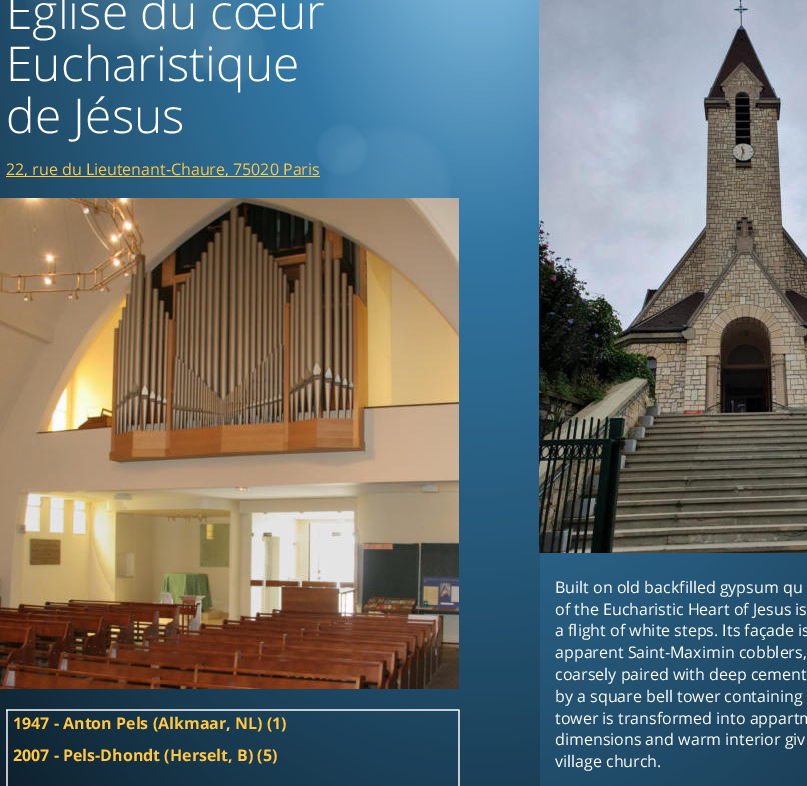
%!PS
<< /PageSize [807 786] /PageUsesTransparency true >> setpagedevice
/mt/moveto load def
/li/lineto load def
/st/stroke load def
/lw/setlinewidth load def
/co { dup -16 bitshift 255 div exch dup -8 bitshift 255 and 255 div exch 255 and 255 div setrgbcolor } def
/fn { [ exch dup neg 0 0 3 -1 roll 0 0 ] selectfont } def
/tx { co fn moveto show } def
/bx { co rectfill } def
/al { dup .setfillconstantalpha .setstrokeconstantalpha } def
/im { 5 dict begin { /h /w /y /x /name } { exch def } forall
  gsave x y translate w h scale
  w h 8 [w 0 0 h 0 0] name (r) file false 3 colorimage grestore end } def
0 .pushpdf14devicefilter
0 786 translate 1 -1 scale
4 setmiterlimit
0 0 807 786 16#000000 bx
(media/1.raw) 0 0 807 786 im
(media/4.raw) 26 0 425 198 im
6 176 314 1 16#FFC742 bx
(media/2.raw) 539 0 268 553 im
(media/3.raw) 0 198 459 491 im
0.15 al
540 553 267 233 16#439AD7 bx
1 al
16#FFFFFF co
1.3 lw
2 setlinejoin
6 710 mt 459.5 710 li st
7 710 mt 7 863 li st
459 710 mt 459 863 li st
(Eglise du cœur) 6 29 /OpenSans-Light 48 16#FFFFFF tx
(Eucharistique) 6 81 /OpenSans-Light 48 16#FFFFFF tx
(de Jésus) 6 133 /OpenSans-Light 48 16#FFFFFF tx
(22, rue du Lieutenant-Chaure, 75020 Paris) 6 175 /OpenSans-Regular 16 16#FFC742 tx
(Built on old backfilled gypsum qu) 555 593 /OpenSans-Regular 16 16#FFFFFF tx
(of the Eucharistic Heart of Jesus is) 555 615 /OpenSans-Regular 16 16#FFFFFF tx
(a flight of white steps. Its façade is) 555 636 /OpenSans-Regular 16 16#FFFFFF tx
(apparent Saint-Maximin cobblers,) 555 658 /OpenSans-Regular 16 16#FFFFFF tx
(coarsely paired with deep cement) 555 680 /OpenSans-Regular 16 16#FFFFFF tx
(by a square bell tower containing) 555 702 /OpenSans-Regular 16 16#FFFFFF tx
(tower is transformed into appartm) 555 724 /OpenSans-Regular 16 16#FFFFFF tx
(dimensions and warm interior giv) 555 745 /OpenSans-Regular 16 16#FFFFFF tx
(village church.) 555 767 /OpenSans-Regular 16 16#FFFFFF tx
(1947 - Anton Pels \(Alkmaar, NL\) \(1\)) 13 729 /OpenSans-Bold 16 16#FFC742 tx
(2007 - Pels-Dhondt \(Herselt, B\) \(5\)) 13 761 /OpenSans-Bold 16 16#FFC742 tx
.poppdf14devicefilter showpage
